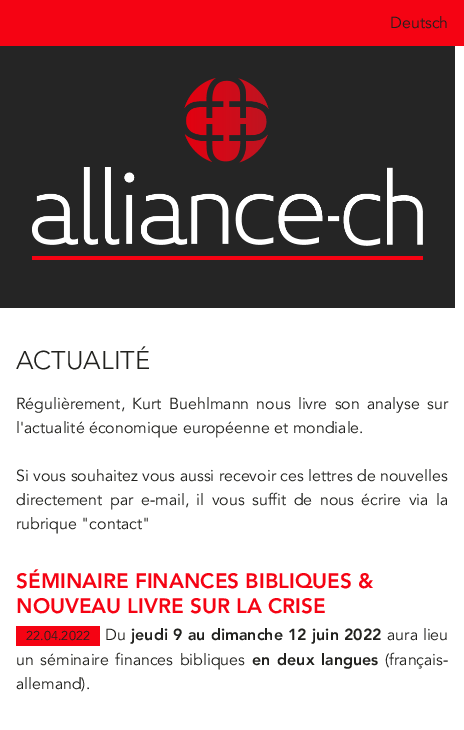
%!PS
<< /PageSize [464 730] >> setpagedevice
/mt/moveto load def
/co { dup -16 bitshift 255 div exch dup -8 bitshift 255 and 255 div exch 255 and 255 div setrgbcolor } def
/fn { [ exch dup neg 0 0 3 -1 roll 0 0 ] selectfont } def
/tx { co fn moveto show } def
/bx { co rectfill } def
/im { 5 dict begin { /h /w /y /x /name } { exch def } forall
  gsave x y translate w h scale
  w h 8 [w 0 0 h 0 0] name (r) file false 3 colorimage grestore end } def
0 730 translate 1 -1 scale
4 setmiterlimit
0 0 464 730 16#F50313 bx
0 46 464 684 16#FFFFFF bx
0 46 455 262 16#252525 bx
32 256 391 4 16#F50313 bx
(media/1.raw) 32 78 391 168 im
16 626 84 20 16#F50313 bx
(Deutsch) 390 28 /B-Regular 16 16#21211E tx
(ACTUALITÉ) 16 369 /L-Light 25.5 16#21211E tx
/B-Regular 16 fn
16 409 mt 2.75 0 32 (Régulièrement, Kurt Buehlmann nous livre son analyse sur) widthshow
(l'actualité économique européenne et mondiale.) 16 433 /B-Regular 16 16#21211E tx
(Si vous souhaitez vous aussi recevoir ces lettres de nouvelles) 16 481 /B-Regular 16 16#21211E tx
16 505 mt 3 0 32 (directement par e-mail, il vous suffit de nous écrire via la) widthshow
(rubrique "contact") 16 529 /B-Regular 16 16#21211E tx
(SÉMINAIRE FINANCES BIBLIQUES &) 16 588 /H-Black 20.75 16#F50313 tx
(NOUVEAU LIVRE SUR LA CRISE) 16 613 /H-Black 20.75 16#F50313 tx
(22.04.2022) 26 640 /B-Regular 12.75 16#21211E tx
(Du) 105 640 /B-Regular 16 16#21211E tx
/H-Black 16 fn
131 640 mt .5 0 32 (jeudi 9 au dimanche 12 juin 2022) widthshow
/B-Regular 16 fn
387 640 mt .5 0 32 (aura lieu) widthshow
16 665 mt 2 0 32 (un séminaire finances bibliques) widthshow
/H-Black 16 fn
252 665 mt 2 0 32 (en deux langues) widthshow
(\(français-) 385 665 /B-Regular 16 16#21211E tx
(allemand\).) 16 689 /B-Regular 16 16#21211E tx
showpage
